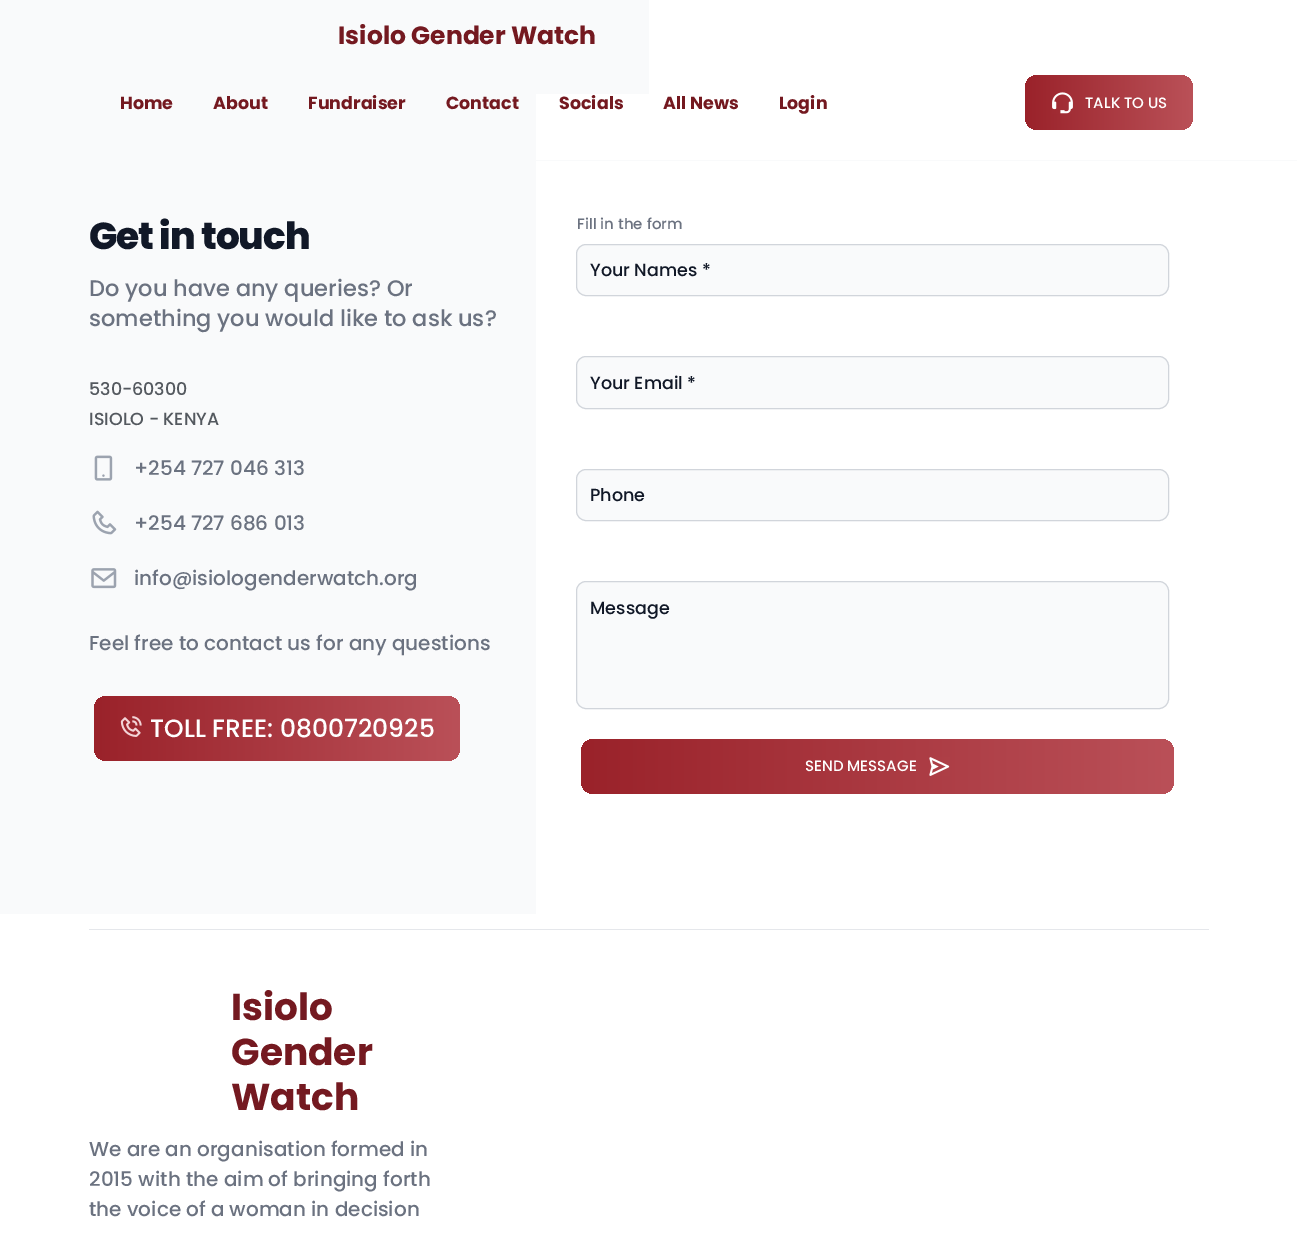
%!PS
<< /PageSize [1297 1236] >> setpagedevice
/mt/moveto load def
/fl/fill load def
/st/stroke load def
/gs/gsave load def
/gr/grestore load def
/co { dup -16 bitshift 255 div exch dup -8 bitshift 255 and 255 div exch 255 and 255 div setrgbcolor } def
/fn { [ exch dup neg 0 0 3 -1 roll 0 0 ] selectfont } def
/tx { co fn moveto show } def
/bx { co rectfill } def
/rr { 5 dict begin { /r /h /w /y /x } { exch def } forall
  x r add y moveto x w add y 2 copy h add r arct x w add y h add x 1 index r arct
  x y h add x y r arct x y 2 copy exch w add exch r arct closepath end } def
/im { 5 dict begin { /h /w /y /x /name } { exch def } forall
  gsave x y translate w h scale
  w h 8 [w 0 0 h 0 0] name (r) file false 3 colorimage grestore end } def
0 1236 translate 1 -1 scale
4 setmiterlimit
0 0 1297 1236 16#FFFFFF bx
0 0 649 914 16#F9FAFB bx
536 94 113 820 16#FFFFFF bx
536 160 761 1 16#F9FAFB bx
gs 1025 75 168 55 13 rr clip newpath
<< /ShadingType 2 /ColorSpace /DeviceRGB /Coords [1025 103 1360 102] /Extend [true true] /Function << /FunctionType 2 /Domain [0 1] /C0 [.604 .133 .165] /C1 [.855 .498 .525] /N 1 >> >> shfill gr
(media/1.raw) 1052 92 21 22 im
(media/2.raw) 94 455 19 26 im
(media/3.raw) 92 510 25 25 im
(media/4.raw) 91 568 26 21 im
gs 94 696 366 65 13 rr clip newpath
<< /ShadingType 2 /ColorSpace /DeviceRGB /Coords [94 729 826 729] /Extend [true true] /Function << /FunctionType 2 /Domain [0 1] /C0 [.604 .133 .165] /C1 [.855 .498 .525] /N 1 >> >> shfill gr
(media/5.raw) 120 716 22 21 im
576.5 244.5 592 51 9.5 rr gs fl gr
16#D1D5DB co
st
16#F9FAFB co
576.5 356.5 592 52 9.5 rr gs fl gr
16#D1D5DB co
st
16#F9FAFB co
576.5 469.5 592 51 9.5 rr gs fl gr
16#D1D5DB co
st
16#F9FAFB co
576.5 581.5 592 127 9.5 rr gs fl gr
16#D1D5DB co
st
gs 581 739 593 55 13 rr clip newpath
<< /ShadingType 2 /ColorSpace /DeviceRGB /Coords [581 766 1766 766] /Extend [true true] /Function << /FunctionType 2 /Domain [0 1] /C0 [.604 .133 .165] /C1 [.855 .498 .525] /N 1 >> >> shfill gr
(media/6.raw) 929 757 21 19 im
89 929 1120 1 16#E5E7EB bx
(Isiolo Gender Watch) 338 44 /Poppins-Bold 25 16#741920 tx
(Home) 120 109 /Poppins-Bold 17.5 16#741920 tx
(About) 213 109 /Poppins-Bold 17.5 16#741920 tx
(Fundraiser) 308 109 /Poppins-Bold 17.5 16#741920 tx
(Contact) 446 109 /Poppins-Bold 17.5 16#741920 tx
(Socials) 559 109 /Poppins-Bold 17.5 16#741920 tx
(All News) 663 109 /Poppins-Bold 17.5 16#741920 tx
(Login) 779 109 /Poppins-Bold 17.5 16#741920 tx
(TALK TO US) 1085 108 /Poppins-Medium 15 16#FFFFFF tx
/Poppins-ExtraBold 37.5 fn
16#111827 co
89 249 mt -1 0 (Get in touch) ashow
(Do you have any queries? Or) 89 296 /Poppins-Medium 22.5 16#6B7280 tx
(something you would like to ask us?) 89 326 /Poppins-Medium 22.5 16#6B7280 tx
(530-60300) 89 395 /Poppins-Medium 17.5 16#54595F tx
(ISIOLO - KENYA) 89 425 /Poppins-Medium 17.5 16#54595F tx
(+254 727 046 313) 134 475 /Poppins-Medium 20 16#6B7280 tx
(+254 727 686 013) 134 530 /Poppins-Medium 20 16#6B7280 tx
(info@isiologenderwatch.org) 134 585 /Poppins-Medium 20 16#6B7280 tx
(Feel free to contact us for any questions) 89 650 /Poppins-Medium 20 16#6B7280 tx
(TOLL FREE: 0800720925) 150 737 /Poppins-Medium 25 16#FFFFFF tx
(Fill in the form) 577 229 /Poppins-Medium 15 16#6B7280 tx
(Your Names *) 590 276 /Poppins-Medium 17.5 16#111827 tx
(Your Email *) 590 389 /Poppins-Medium 17.5 16#111827 tx
(Phone) 590 501 /Poppins-Medium 17.5 16#111827 tx
(Message) 590 614 /Poppins-Medium 17.5 16#111827 tx
(SEND MESSAGE) 805 771 /Poppins-Medium 15 16#FFFFFF tx
(Isiolo) 231 1020 /Poppins-Bold 37.5 16#741920 tx
(Gender) 231 1065 /Poppins-Bold 37.5 16#741920 tx
(Watch) 231 1110 /Poppins-Bold 37.5 16#741920 tx
(We are an organisation formed in) 89 1156 /Poppins-Medium 20 16#6B7280 tx
(2015 with the aim of bringing forth) 89 1186 /Poppins-Medium 20 16#6B7280 tx
(the voice of a woman in decision) 89 1216 /Poppins-Medium 20 16#6B7280 tx
showpage
